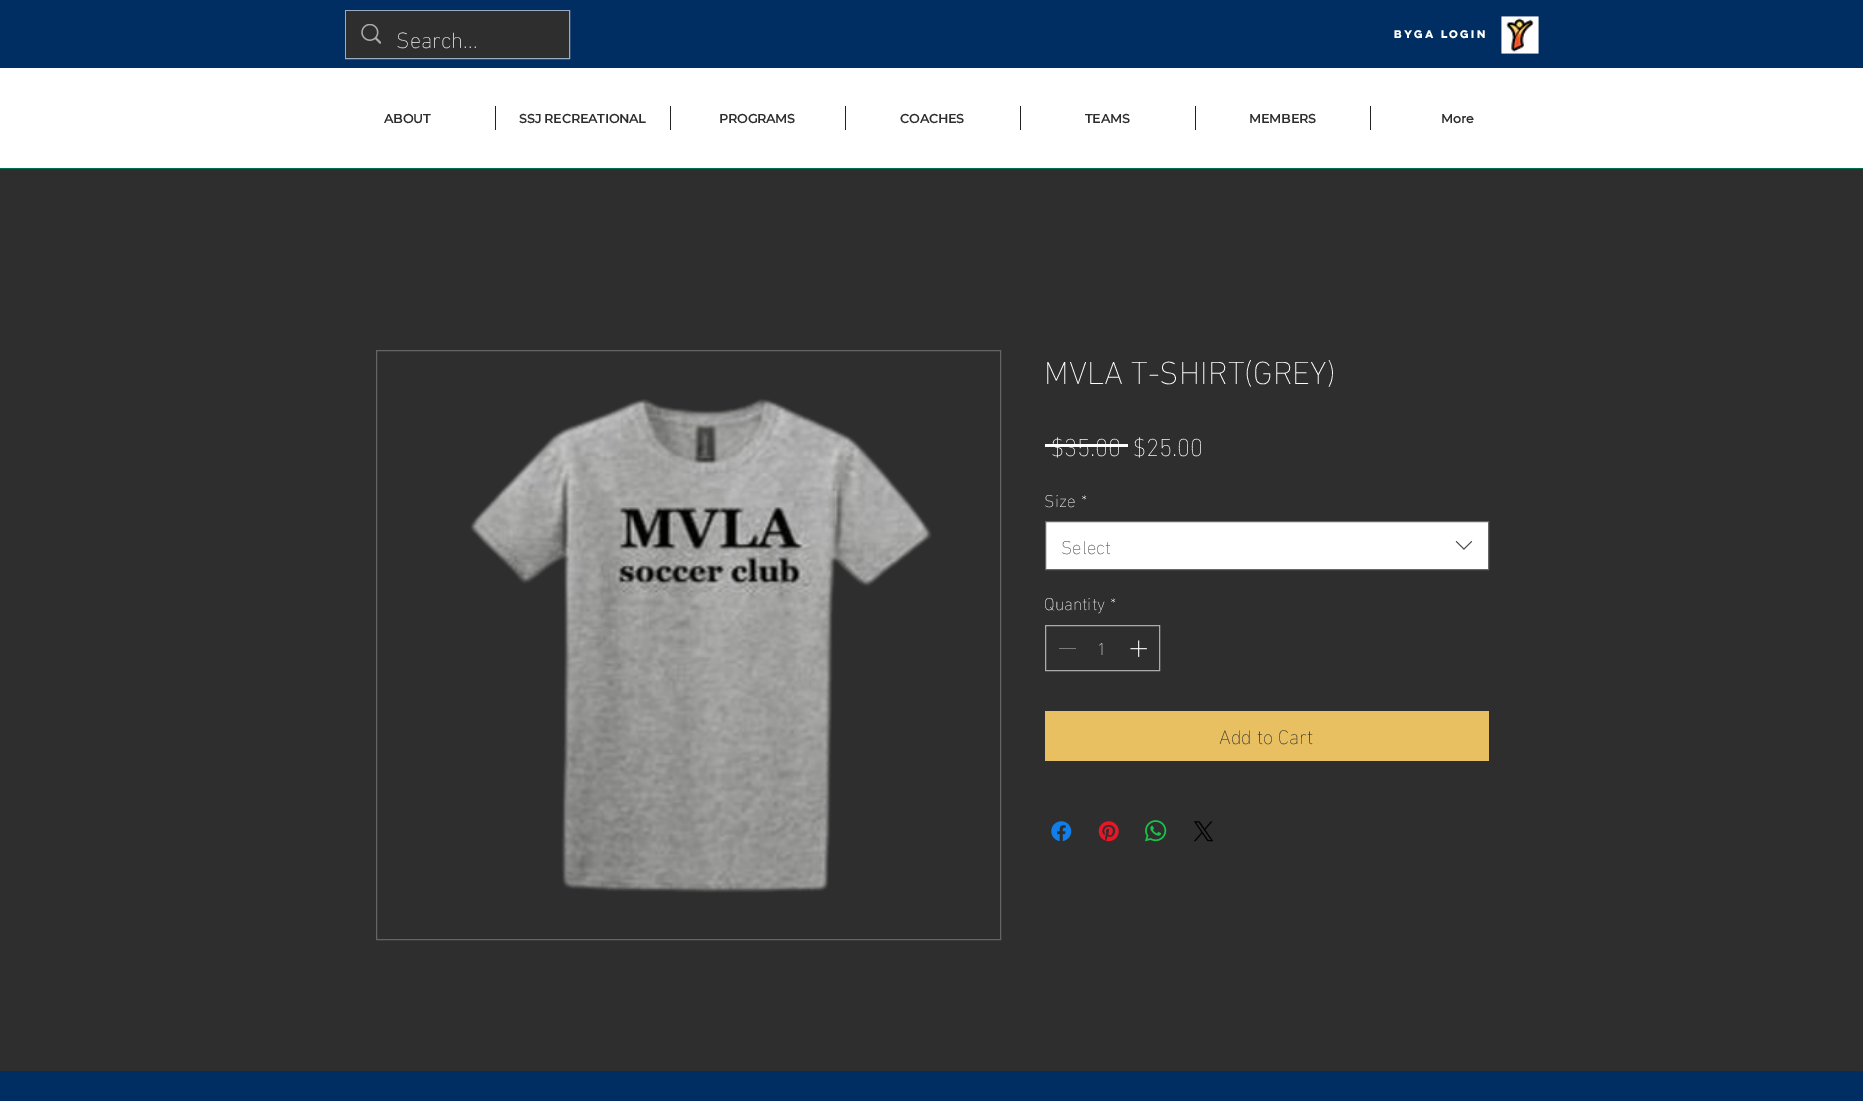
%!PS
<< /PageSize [1863 1101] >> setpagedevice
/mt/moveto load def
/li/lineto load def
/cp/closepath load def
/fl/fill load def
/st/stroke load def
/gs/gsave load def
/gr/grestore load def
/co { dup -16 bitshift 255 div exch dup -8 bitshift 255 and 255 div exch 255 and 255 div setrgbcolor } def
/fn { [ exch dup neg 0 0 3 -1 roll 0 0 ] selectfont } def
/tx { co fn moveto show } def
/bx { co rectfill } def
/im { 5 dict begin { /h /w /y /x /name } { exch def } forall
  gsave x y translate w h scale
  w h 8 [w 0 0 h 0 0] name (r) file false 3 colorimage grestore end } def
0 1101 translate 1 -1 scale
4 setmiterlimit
0 0 1863 1101 16#2D2E2D bx
0 0 1863 68 16#002D62 bx
16#99ABC0 co
345.5 10.5 224 48 rectstroke
346 11 223 47 16#2D2E2D bx
(media/1.raw) 361 24 20 20 im
(media/2.raw) 1501 16 38 38 im
0 68 1863 100 16#FFFFFF bx
495 106 1 24 16#242323 bx
670 106 1 24 16#242323 bx
845 106 1 24 16#242323 bx
1020 106 1 24 16#242323 bx
1195 106 1 24 16#242323 bx
1370 106 1 24 16#242323 bx
0 168 1863 1 16#006F51 bx
16#646464 co
376.5 350.5 624 589 rectstroke
(media/3.raw) 470 399 462 494 im
1045 444 83 3 16#FFFFFF bx
1045.5 521.5 mt 1488.5 521.5 li 1488.5 569.5 li 1045.5 569.5 li cp gs fl gr
16#666666 co
st
(media/4.raw) 1455 540 18 10 im
16#ABABAB co
1045.5 625.5 114 45 rectstroke
1059 648 17 1 16#7A7B7A bx
(media/5.raw) 1130 640 17 17 im
1045 711 444 50 16#E8C061 bx
(media/6.raw) 1051 821 21 21 im
(media/7.raw) 1098 821 21 21 im
(media/8.raw) 1145 820 22 22 im
(media/9.raw) 1194 821 19 21 im
0 1071 1863 30 16#002D62 bx
(Search...) 396 48 /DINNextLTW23-ExtraLight 22.5 16#FFFFFF tx
(BYGA LOGIN) 1394 38 /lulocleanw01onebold-Bold 10 16#FFFFFF tx
(ABOUT) 384 123 /Montserrat-Bold 12.5 16#2D2E2D tx
(SSJ RECREATIONAL) 519 123 /Montserrat-Bold 12.5 16#2D2E2D tx
(PROGRAMS) 719 123 /Montserrat-Bold 12.5 16#2D2E2D tx
(COACHES) 900 123 /Montserrat-Bold 12.5 16#2D2E2D tx
(TEAMS) 1085 123 /Montserrat-Bold 12.5 16#2D2E2D tx
(MEMBERS) 1249 123 /Montserrat-Bold 12.5 16#2D2E2D tx
(More) 1441 123 /Montserrat-Bold 12.5 16#2D2E2D tx
(MVLA T-SHIRT\(GREY\)) 1044 384 /DINNextLTW23-ExtraLight 32.5 16#FFFFFF tx
($35.00) 1051 456 /DINNextLTW23-ExtraLight 25 16#FFFFFF tx
($25.00) 1133 456 /DINNextLTW23-ExtraLight 25 16#FFFFFF tx
(Size) 1044 507 /DINNextLTW23-ExtraLight 17.5 16#FFFFFF tx
(*) 1081 507 /DINNextLTW23-ExtraLight 17.5 16#FFFFFF tx
(Select) 1061 554 /DINNextLTW23-ExtraLight 19 16#444444 tx
(Quantity) 1044 610 /DINNextLTW23-ExtraLight 17.5 16#FFFFFF tx
(*) 1110 610 /DINNextLTW23-ExtraLight 17.5 16#FFFFFF tx
(1) 1097 655 /DINNextLTW23-ExtraLight 17.5 16#FFFFFF tx
(Add to Cart) 1219 744 /DINNextLTW23-ExtraLight 20 16#2D2E2D tx
showpage
